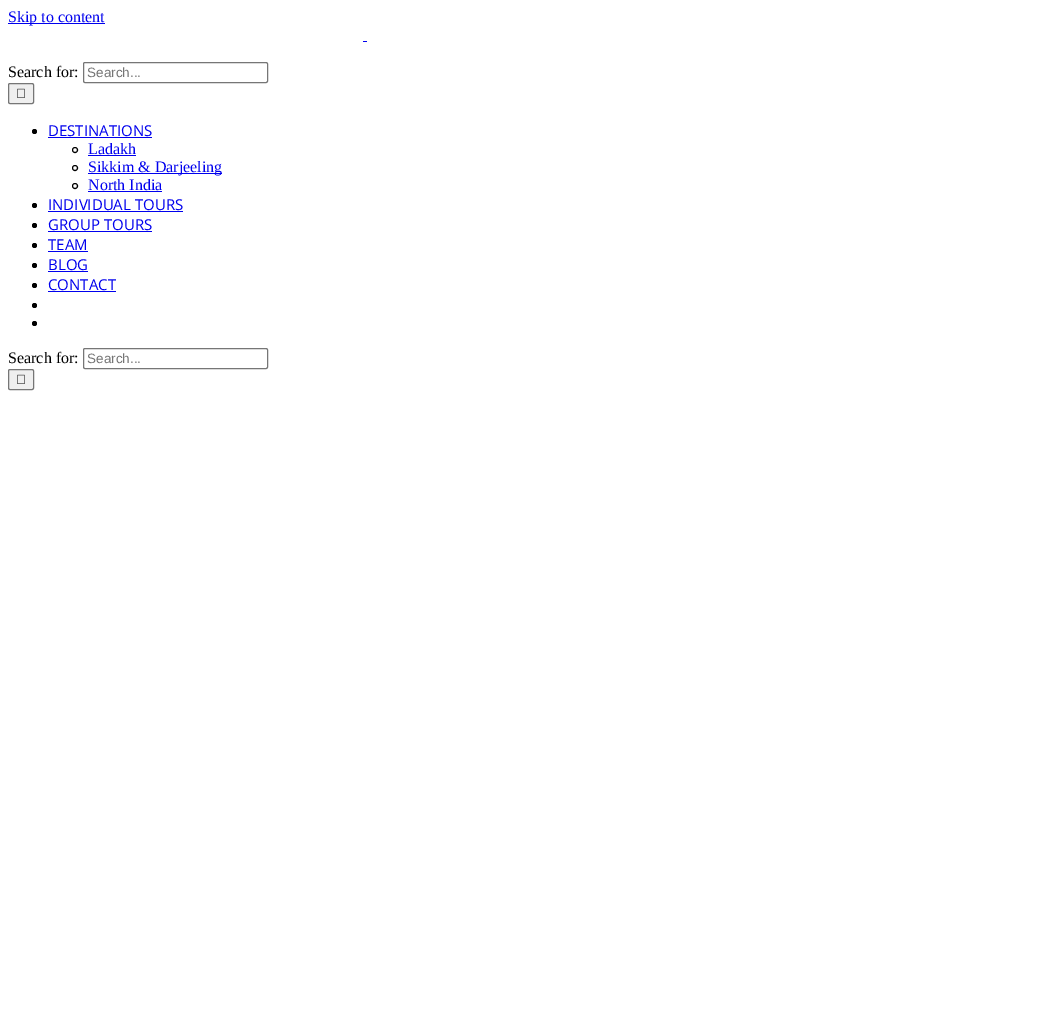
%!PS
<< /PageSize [1062 1016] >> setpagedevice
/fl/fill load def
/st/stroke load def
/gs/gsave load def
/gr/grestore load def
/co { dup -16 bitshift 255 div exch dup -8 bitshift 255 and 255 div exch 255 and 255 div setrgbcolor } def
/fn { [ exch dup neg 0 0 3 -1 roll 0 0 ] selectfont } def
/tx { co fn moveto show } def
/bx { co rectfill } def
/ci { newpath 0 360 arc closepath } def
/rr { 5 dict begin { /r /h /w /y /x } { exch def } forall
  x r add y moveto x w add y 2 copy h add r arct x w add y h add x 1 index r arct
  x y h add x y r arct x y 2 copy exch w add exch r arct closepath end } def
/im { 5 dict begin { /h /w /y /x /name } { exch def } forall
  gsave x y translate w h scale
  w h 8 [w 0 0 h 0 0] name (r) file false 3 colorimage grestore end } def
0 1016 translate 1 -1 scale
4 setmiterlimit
0 0 1062 1016 16#FFFFFF bx
8 23 97 1 16#0000EE bx
363 41 4 1 16#0000EE bx
16#767676 co
83.5 62.5 184 20 1.5 rr st
16#EFEFEF co
8.5 83.5 25 20 1.5 rr gs fl gr
16#767676 co
st
(media/1.raw) 17 88 8 10 im
16#000000 co
34.5 131.5 2.5 ci fl
48 137 104 1 16#0000EE bx
16#000000 co
75 150 2.5 ci st
88 155 48 1 16#0000EE bx
16#000000 co
75 168 2.5 ci st
88 173 134 1 16#0000EE bx
16#000000 co
75 186 2.5 ci st
88 191 74 1 16#0000EE bx
16#000000 co
34.5 205.5 2.5 ci fl
48 211 135 1 16#0000EE bx
16#000000 co
34.5 225.5 2.5 ci fl
48 231 104 1 16#0000EE bx
16#000000 co
34.5 245.5 2.5 ci fl
48 251 40 1 16#0000EE bx
16#000000 co
34.5 265.5 2.5 ci fl
48 271 40 1 16#0000EE bx
16#000000 co
34.5 285.5 2.5 ci fl
48 291 68 1 16#0000EE bx
16#000000 co
34.5 305.5 2.5 ci fl
34.5 323.5 2.5 ci fl
16#767676 co
83.5 348.5 184 20 1.5 rr st
16#EFEFEF co
8.5 369.5 25 20 1.5 rr gs fl gr
16#767676 co
st
(media/1.raw) 17 374 8 10 im
(Skip to content) 8 22 /LiberationSerif-Regular 16 16#0000EE tx
(Search for:) 8 77 /LiberationSerif-Regular 16 16#000000 tx
(Search...) 87 77 /LiberationSans-Regular 13.5 16#757575 tx
(DESTINATIONS) 48 136 /OpenSans-Regular 15 16#0000EE tx
(Ladakh) 88 154 /LiberationSerif-Regular 16 16#0000EE tx
(Sikkim & Darjeeling) 88 172 /LiberationSerif-Regular 16 16#0000EE tx
(North India) 88 190 /LiberationSerif-Regular 16 16#0000EE tx
(INDIVIDUAL TOURS) 48 210 /OpenSans-Regular 15 16#0000EE tx
(GROUP TOURS) 48 230 /OpenSans-Regular 15 16#0000EE tx
(TEAM) 48 250 /OpenSans-Regular 15 16#0000EE tx
(BLOG) 48 270 /OpenSans-Regular 15 16#0000EE tx
(CONTACT) 48 290 /OpenSans-Regular 15 16#0000EE tx
(Search for:) 8 363 /LiberationSerif-Regular 16 16#000000 tx
(Search...) 87 363 /LiberationSans-Regular 13.5 16#757575 tx
showpage
